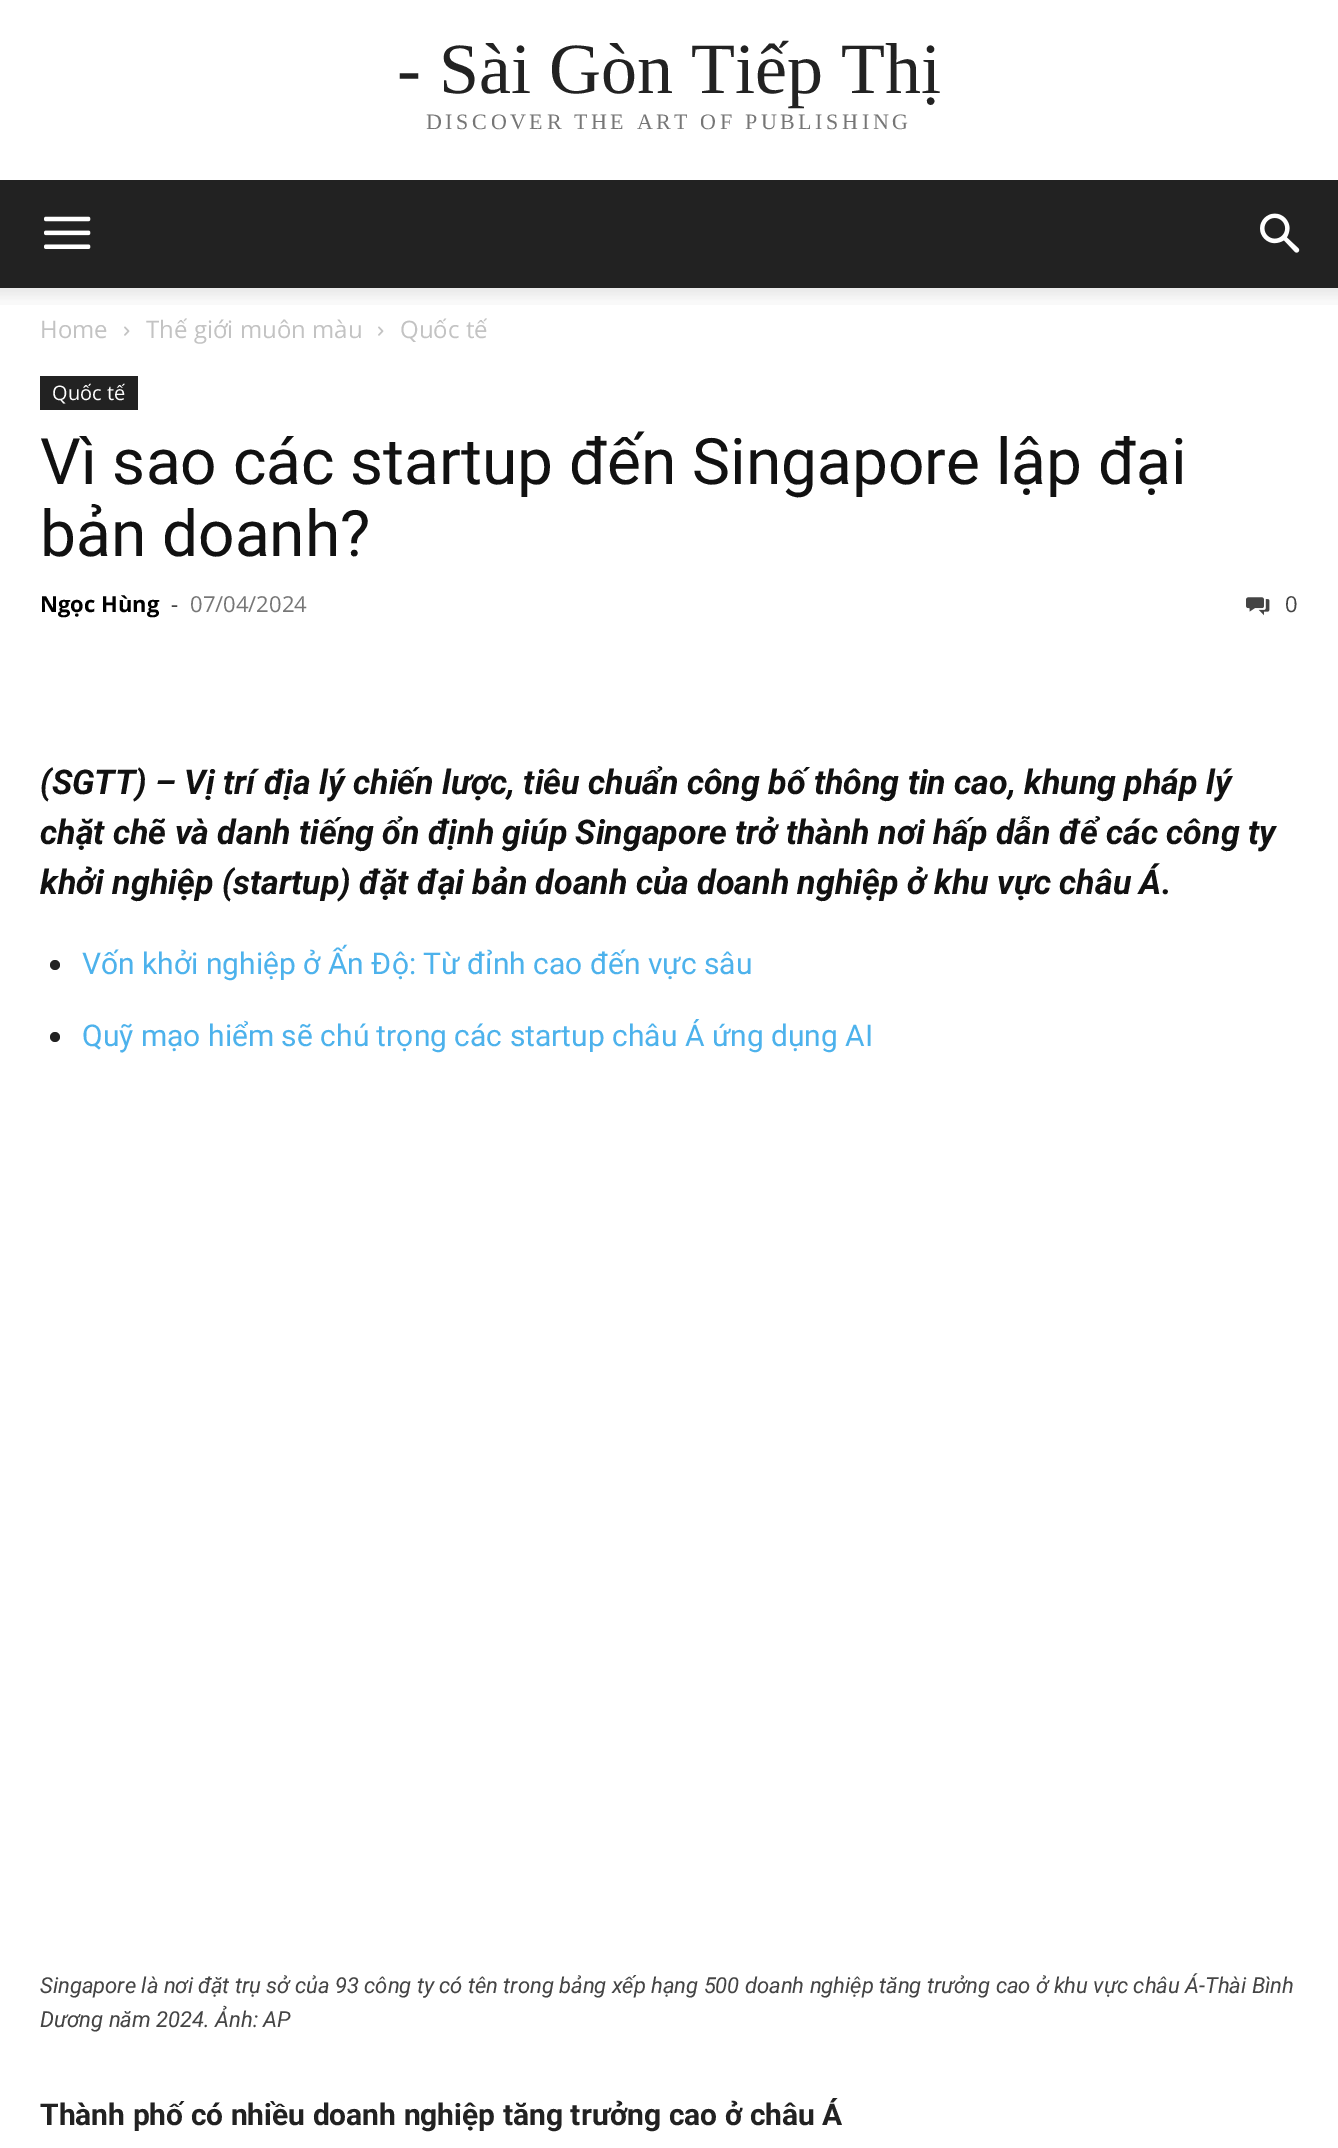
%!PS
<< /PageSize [1338 2148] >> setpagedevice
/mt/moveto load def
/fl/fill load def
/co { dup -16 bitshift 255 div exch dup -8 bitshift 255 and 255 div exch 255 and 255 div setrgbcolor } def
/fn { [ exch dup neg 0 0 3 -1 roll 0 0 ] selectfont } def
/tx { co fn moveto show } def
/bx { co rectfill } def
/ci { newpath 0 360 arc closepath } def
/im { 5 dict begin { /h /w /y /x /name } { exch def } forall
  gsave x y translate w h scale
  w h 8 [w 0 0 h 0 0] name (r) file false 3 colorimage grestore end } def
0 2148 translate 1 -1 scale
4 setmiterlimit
0 0 1338 2148 16#FFFFFF bx
0 180 1338 108 16#222222 bx
(media/1.raw) 44 216 47 33 im
(media/2.raw) 1260 213 40 40 im
(media/3.raw) 0 288 1338 17 im
(media/4.raw) 124 326 6 10 im
(media/4.raw) 378 326 6 10 im
40 376 98 34 16#222222 bx
(media/5.raw) 1246 597 24 19 im
55 965 5 ci fl
55 1037 5 ci fl
(- Sài Gòn Tiếp Thị) 397 93 /LiberationSerif-Regular 72 16#222222 tx
/LiberationSerif-Regular 22 fn
16#767676 co
426 129 mt 3.6 0 (DISCOVER THE ART OF PUBLISHING) ashow
(Home) 40 338 /OpenSans-Regular 24 16#C3C3C3 tx
(Thế giới muôn màu) 146 338 /OpenSans-Regular 24 16#C3C3C3 tx
(Quốc tế) 400 338 /OpenSans-Regular 24 16#C3C3C3 tx
(Quốc tế) 52 400 /OpenSans-Regular 20 16#FFFFFF tx
(Vì sao các startup đến Singapore lập đại) 40 484 /Roboto-Regular 64 16#111111 tx
(bản doanh?) 40 556 /Roboto-Regular 64 16#111111 tx
(Ngọc Hùng) 40 612 /OpenSans-Bold 22 16#000000 tx
(-) 171 612 /OpenSans-Regular 22 16#444444 tx
(07/04/2024) 190 612 /OpenSans-Regular 22 16#767676 tx
(0) 1285 612 /OpenSans-Regular 22 16#444444 tx
(\(SGTT\) – Vị trí địa lý chiến lược, tiêu chuẩn công bố thông tin cao, khung pháp lý) 40 794 /Roboto-BoldItalic 34 16#111111 tx
(chặt chẽ và danh tiếng ổn định giúp Singapore trở thành nơi hấp dẫn để các công ty) 40 844 /Roboto-BoldItalic 34 16#111111 tx
(khởi nghiệp \(startup\) đặt đại bản doanh của doanh nghiệp ở khu vực châu Á.) 40 894 /Roboto-BoldItalic 34 16#111111 tx
(Vốn khởi nghiệp ở Ấn Độ: Từ đỉnh cao đến vực sâu) 82 974 /Roboto-Regular 30 16#4DB2EC tx
(Quỹ mạo hiểm sẽ chú trọng các startup châu Á ứng dụng AI) 82 1046 /Roboto-Regular 30 16#4DB2EC tx
(Singapore là nơi đặt trụ sở của 93 công ty có tên trong bảng xếp hạng 500 doanh nghiệp tăng trưởng cao ở khu vực châu Á-Thài Bình) 40 1993 /Roboto-Italic 22 16#444444 tx
(Dương năm 2024. Ảnh: AP) 40 2027 /Roboto-Italic 22 16#444444 tx
(Thành phố có nhiều doanh nghiệp tăng trưởng cao ở châu Á) 40 2125 /Roboto-Bold 30 16#222222 tx
showpage
